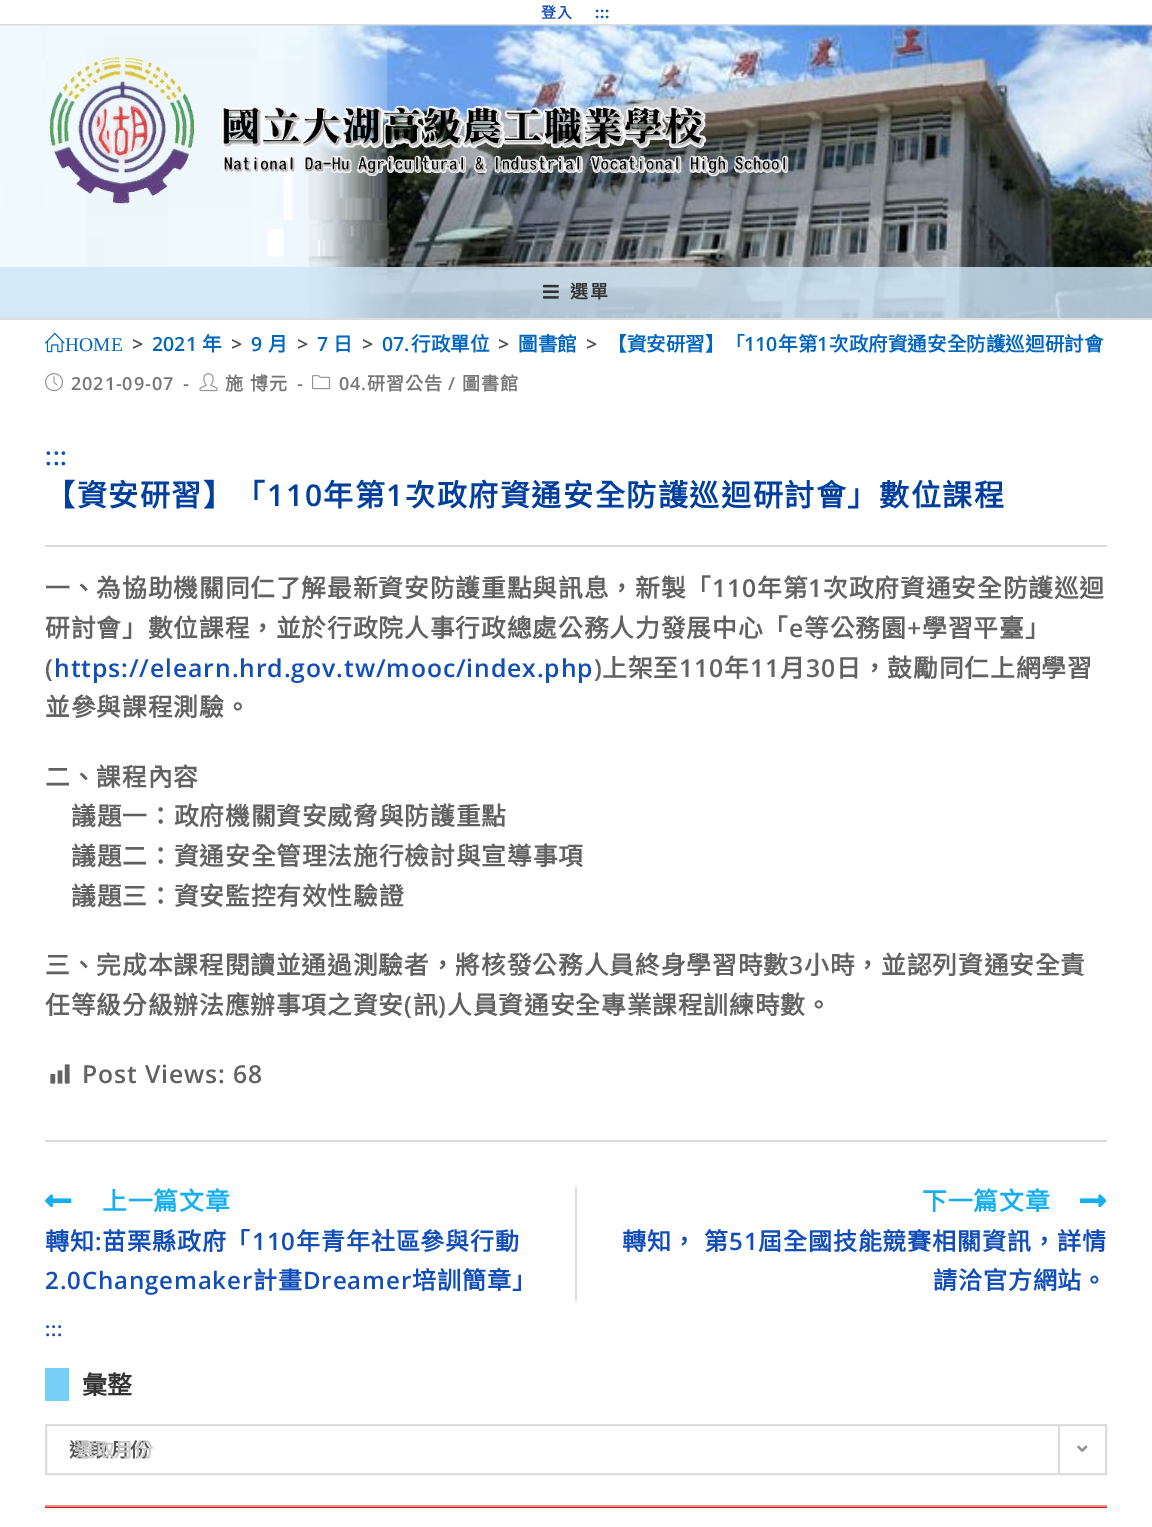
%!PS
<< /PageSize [1152 1527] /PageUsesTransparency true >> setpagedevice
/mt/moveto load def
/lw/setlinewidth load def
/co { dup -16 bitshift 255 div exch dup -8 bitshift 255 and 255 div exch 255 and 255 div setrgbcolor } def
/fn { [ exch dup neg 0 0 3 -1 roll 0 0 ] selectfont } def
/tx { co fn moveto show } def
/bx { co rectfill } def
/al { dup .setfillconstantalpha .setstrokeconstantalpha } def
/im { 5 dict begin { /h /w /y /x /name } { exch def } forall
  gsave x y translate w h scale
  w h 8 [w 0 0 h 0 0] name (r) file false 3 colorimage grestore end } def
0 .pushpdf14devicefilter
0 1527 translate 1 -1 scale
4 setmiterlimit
0 0 1152 1527 16#FFFFFF bx
0 24 1152 2 16#DCDCDC bx
(media/1.raw) 0 25 1152 293 im
0 318 1152 2 16#DCDCDC bx
(media/2.raw) 49 56 740 149 im
0.82 al
0 267 1152 51 16#CDE6F7 bx
1 al
(media/3.raw) 543 284 16 15 im
(media/4.raw) 45 332 20 21 im
(media/5.raw) 45 373 18 19 im
(media/6.raw) 199 373 19 19 im
(media/7.raw) 312 375 18 15 im
45 545 1062 2 16#DCDCDC bx
(media/8.raw) 50 1064 20 20 im
45 1140 1062 2 16#DCDCDC bx
575 1187 2 114 16#DCDCDC bx
(media/9.raw) 45 1194 27 14 im
(media/10.raw) 1080 1194 27 14 im
45 1368 24 33 16#75CFF6 bx
16#DDDDDD co
2 lw
46 1425 1060 49 rectstroke
1058 1425 2 48 16#DDDDDD bx
(media/11.raw) 1077 1445 11 8 im
45 1507 1062 1 16#FF0000 bx
45 1505 1062 2 16#DC9494 bx
/NotoSansCJKTC-Bold 15 fn
16#124EB7 co
541 18 mt .9 0 (登入) ashow
/OpenSans-Bold 15 fn
595 18 mt .9 0 (:::) ashow
/NotoSansCJKTC-Bold 18 fn
16#333333 co
570 298 mt 2 0 (選單) ashow
/LiberationSerif-Regular 19.5 fn
16#0066BF co
65 351 mt .1 0 (HOME) ashow
/OpenSans-SemiBold 19.5 fn
16#494949 co
132 351 mt .1 0 (>) ashow
16#0066BF co
152 351 mt .1 0 (2021) ashow
/NotoSansCJKTC-Bold 19.5 fn
202 351 mt .1 0 (年) ashow
/OpenSans-SemiBold 19.5 fn
16#494949 co
231 351 mt .1 0 (>) ashow
16#0066BF co
251 351 mt .1 0 (9) ashow
/NotoSansCJKTC-Bold 19.5 fn
268 351 mt .1 0 (月) ashow
/OpenSans-SemiBold 19.5 fn
16#494949 co
297 351 mt .1 0 (>) ashow
16#0066BF co
317 351 mt .1 0 (7) ashow
/NotoSansCJKTC-Bold 19.5 fn
333 351 mt .1 0 (日) ashow
/OpenSans-SemiBold 19.5 fn
16#494949 co
362 351 mt .1 0 (>) ashow
16#0066BF co
382 351 mt .1 0 (07.) ashow
/NotoSansCJKTC-Bold 19.5 fn
411 351 mt .1 0 (行政單位) ashow
/OpenSans-SemiBold 19.5 fn
16#494949 co
498 351 mt .1 0 (>) ashow
/NotoSansCJKTC-Bold 19.5 fn
16#0066BF co
518 351 mt .1 0 (圖書館) ashow
/OpenSans-SemiBold 19.5 fn
16#494949 co
586 351 mt .1 0 (>) ashow
/NotoSansCJKTC-Bold 19.5 fn
16#0066BF co
607 351 mt .1 0 (【資安研習】「) ashow
/OpenSans-SemiBold 19.5 fn
744 351 mt .1 0 (110) ashow
/NotoSansCJKTC-Bold 19.5 fn
778 351 mt .1 0 (年第) ashow
/OpenSans-SemiBold 19.5 fn
817 351 mt .1 0 (1) ashow
/NotoSansCJKTC-Bold 19.5 fn
829 351 mt .1 0 (次政府資通安全防護巡迴研討會) ashow
/OpenSans-SemiBold 18 fn
16#777777 co
71 390 mt .9 0 (2021-09-07) ashow
183 390 mt .9 0 (-) ashow
/NotoSansCJKTC-Bold 18 fn
225 390 mt 1 0 32 .9 0 (施 博元) awidthshow
/OpenSans-SemiBold 18 fn
297 390 mt .9 0 (-) ashow
339 390 mt .9 0 (04.) ashow
/NotoSansCJKTC-Bold 18 fn
367 390 mt .9 0 (研習公告) ashow
/OpenSans-SemiBold 18 fn
448 390 mt .9 0 (/) ashow
/NotoSansCJKTC-Bold 18 fn
462 390 mt .9 0 (圖書館) ashow
/OpenSans-SemiBold 24.75 fn
16#124EB7 co
45 465 mt .9 0 (:::) ashow
/NotoSansCJKTC-Bold 30 fn
16#003F9E co
45 506 mt 1.6 0 (【資安研習】「) ashow
/OpenSans-SemiBold 30 fn
267 506 mt 1.6 0 (110) ashow
/NotoSansCJKTC-Bold 30 fn
323 506 mt 1.6 0 (年第) ashow
/OpenSans-SemiBold 30 fn
386 506 mt 1.6 0 (1) ashow
/NotoSansCJKTC-Bold 30 fn
405 506 mt 1.6 0 (次政府資通安全防護巡迴研討會」數位課程) ashow
/NotoSansCJKTC-Bold 24.75 fn
16#626262 co
45 597 mt .9 0 (一、為協助機關同仁了解最新資安防護重點與訊息，新製「) ashow
/OpenSans-SemiBold 24.75 fn
712 597 mt .9 0 (110) ashow
/NotoSansCJKTC-Bold 24.75 fn
757 597 mt .9 0 (年第) ashow
/OpenSans-SemiBold 24.75 fn
808 597 mt .9 0 (1) ashow
/NotoSansCJKTC-Bold 24.75 fn
823 597 mt .9 0 (次政府資通安全防護巡迴) ashow
45 637 mt .9 0 (研討會」數位課程，並於行政院人事行政總處公務人力發展中心「) ashow
/OpenSans-SemiBold 24.75 fn
789 637 mt .9 0 (e) ashow
/NotoSansCJKTC-Bold 24.75 fn
804 637 mt .9 0 (等公務園) ashow
/OpenSans-SemiBold 24.75 fn
907 637 mt .9 0 (+) ashow
/NotoSansCJKTC-Bold 24.75 fn
922 637 mt .9 0 (學習平臺」) ashow
/OpenSans-SemiBold 24.75 fn
45 677 mt .9 0 (\() ashow
16#124EB7 co
54 677 mt .9 0 (https://elearn.hrd.gov.tw/mooc/index.php) ashow
16#626262 co
594 677 mt .9 0 (\)) ashow
/NotoSansCJKTC-Bold 24.75 fn
602 677 mt .9 0 (上架至) ashow
/OpenSans-SemiBold 24.75 fn
679 677 mt .9 0 (110) ashow
/NotoSansCJKTC-Bold 24.75 fn
724 677 mt .9 0 (年) ashow
/OpenSans-SemiBold 24.75 fn
750 677 mt .9 0 (11) ashow
/NotoSansCJKTC-Bold 24.75 fn
780 677 mt .9 0 (月) ashow
/OpenSans-SemiBold 24.75 fn
806 677 mt .9 0 (30) ashow
/NotoSansCJKTC-Bold 24.75 fn
836 677 mt .9 0 (日，鼓勵同仁上網學習) ashow
45 716 mt .9 0 (並參與課程測驗。) ashow
45 786 mt .9 0 (二、課程內容) ashow
71 825 mt .9 0 (議題一：政府機關資安威脅與防護重點) ashow
71 865 mt .9 0 (議題二：資通安全管理法施行檢討與宣導事項) ashow
71 905 mt .9 0 (議題三：資安監控有效性驗證) ashow
45 974 mt .9 0 (三、完成本課程閱讀並通過測驗者，將核發公務人員終身學習時數) ashow
/OpenSans-SemiBold 24.75 fn
789 974 mt .9 0 (3) ashow
/NotoSansCJKTC-Bold 24.75 fn
804 974 mt .9 0 (小時，並認列資通安全責) ashow
45 1014 mt .9 0 (任等級分級辦法應辦事項之資安) ashow
/OpenSans-SemiBold 24.75 fn
404 1014 mt .9 0 (\() ashow
/NotoSansCJKTC-Bold 24.75 fn
413 1014 mt .9 0 (訊) ashow
/OpenSans-SemiBold 24.75 fn
438 1014 mt .9 0 (\)) ashow
/NotoSansCJKTC-Bold 24.75 fn
447 1014 mt .9 0 (人員資通安全專業課程訓練時數。) ashow
/OpenSans-SemiBold 24.75 fn
82 1083 mt .9 0 (Post Views: 68) ashow
/NotoSansCJKTC-Bold 24.75 fn
16#13AFF0 co
102 1210 mt .9 0 (上一篇文章) ashow
/NotoSansCJKTC-Bold 24 fn
16#124EB7 co
45 1250 mt .9 0 (轉知) ashow
/OpenSans-SemiBold 24 fn
95 1250 mt .9 0 (:) ashow
/NotoSansCJKTC-Bold 24 fn
102 1250 mt .9 0 (苗栗縣政府「) ashow
/OpenSans-SemiBold 24 fn
252 1250 mt .9 0 (110) ashow
/NotoSansCJKTC-Bold 24 fn
296 1250 mt .9 0 (年青年社區參與行動) ashow
/OpenSans-SemiBold 24 fn
45 1289 mt .9 0 (2.0Changemaker) ashow
/NotoSansCJKTC-Bold 24 fn
253 1289 mt .9 0 (計畫) ashow
/OpenSans-SemiBold 24 fn
303 1289 mt .9 0 (Dreamer) ashow
/NotoSansCJKTC-Bold 24 fn
412 1289 mt .9 0 (培訓簡章」) ashow
/NotoSansCJKTC-Bold 24.75 fn
16#13AFF0 co
922 1210 mt .9 0 (下一篇文章) ashow
/NotoSansCJKTC-Bold 24 fn
16#124EB7 co
622 1250 mt 1 0 32 .9 0 (轉知， 第) awidthshow
/OpenSans-SemiBold 24 fn
729 1250 mt .9 0 (51) ashow
/NotoSansCJKTC-Bold 24 fn
758 1250 mt .9 0 (屆全國技能競賽相關資訊，詳情) ashow
933 1289 mt .9 0 (請洽官方網站。) ashow
/OpenSans-SemiBold 19.5 fn
45 1336 mt .9 0 (:::) ashow
(彙整) 82 1394 /NotoSansCJKTC-Bold 25 16#333333 tx
/NotoSansCJKTC-Bold 19.5 fn
16#555555 co
69 1457 mt .9 0 (選取月份) ashow
(選取月份) 75 1457 /NotoSansCJKTC-Bold 19.5 16#CACACA tx
.poppdf14devicefilter showpage
